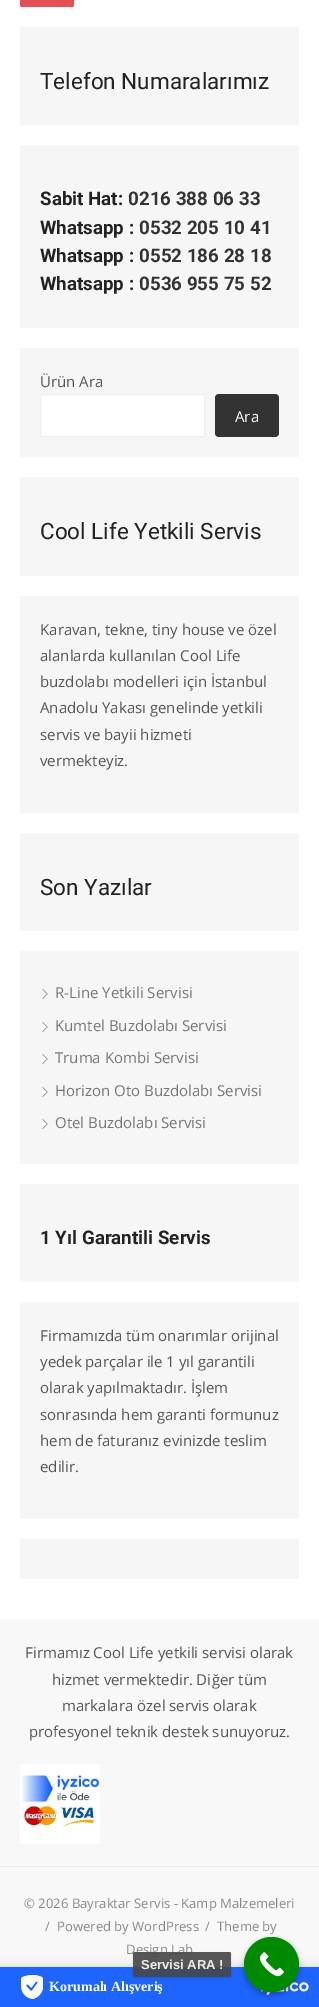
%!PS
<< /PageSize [319 2007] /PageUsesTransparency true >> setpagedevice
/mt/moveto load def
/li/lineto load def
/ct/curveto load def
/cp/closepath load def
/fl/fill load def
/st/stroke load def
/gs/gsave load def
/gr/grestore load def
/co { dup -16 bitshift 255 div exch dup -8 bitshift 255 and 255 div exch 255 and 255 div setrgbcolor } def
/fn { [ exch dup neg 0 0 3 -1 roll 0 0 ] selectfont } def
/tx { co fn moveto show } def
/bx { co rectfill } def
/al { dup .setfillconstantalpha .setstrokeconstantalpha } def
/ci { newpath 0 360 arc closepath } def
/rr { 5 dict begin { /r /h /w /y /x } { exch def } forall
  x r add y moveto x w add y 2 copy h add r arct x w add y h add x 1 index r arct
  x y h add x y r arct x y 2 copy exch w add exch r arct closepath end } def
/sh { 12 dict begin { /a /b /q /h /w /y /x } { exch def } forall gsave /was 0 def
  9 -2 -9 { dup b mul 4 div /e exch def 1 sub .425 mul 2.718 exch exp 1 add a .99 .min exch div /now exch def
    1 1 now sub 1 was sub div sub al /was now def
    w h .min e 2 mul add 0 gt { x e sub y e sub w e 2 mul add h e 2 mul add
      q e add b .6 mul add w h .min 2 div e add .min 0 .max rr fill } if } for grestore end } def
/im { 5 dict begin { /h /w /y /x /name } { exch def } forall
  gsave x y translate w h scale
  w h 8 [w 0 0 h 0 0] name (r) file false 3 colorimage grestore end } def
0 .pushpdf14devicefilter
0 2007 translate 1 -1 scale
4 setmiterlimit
0 0 319 2007 16#FFFFFF bx
16#E54E53 co
20 -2 54 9 2 rr fl
16#F6F6F6 co
20 27 279 98 2 rr fl
20 145 279 183 2 rr fl
20 348 279 109 2 rr fl
16#FFFFFF co
40.5 394.5 mt 204.5 394.5 li 204.5 436.5 li 40.5 436.5 li cp gs fl gr
16#EEEEEE co
st
16#333333 co
215 394 64 43 4 rr fl
16#F6F6F6 co
20 477 279 99 2 rr fl
20 596 279 217 2 rr fl
20 833 279 98 2 rr fl
20 951 279 213 2 rr fl
(media/1.raw) 42 989 6 10 im
(media/1.raw) 42 1022 6 10 im
(media/1.raw) 42 1054 6 10 im
(media/1.raw) 42 1087 6 10 im
(media/1.raw) 42 1119 6 10 im
20 1184 279 98 2 rr fl
20 1302 279 217 2 rr fl
20 1539 279 40 2 rr fl
0 1619 319 348 16#F8F8F8 bx
(media/2.raw) 20 1764 80 80 im
0 1866 319 1 16#ECECEC bx
16#000000 co
0 1967 319 40 0 5 .15 sh
0 1967 319 40 16#1E64FF bx
(media/5.raw) 261 1982 48 13 im
16#000000 co
244 1940 55 55 27.5 3 .3 sh
16#008A00 co
271.5 1964.5 27.5 ci fl
(media/3.raw) 259 1952 25 25 im
gs
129 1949 mt 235 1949 li 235 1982 li 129 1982 li cp 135 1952 mt 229 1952 li 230 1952 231 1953 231 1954 ct 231 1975 li 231 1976 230 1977 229 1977 ct 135 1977 li 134 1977 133 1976 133 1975 ct 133 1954 li 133 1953 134 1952 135 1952 ct cp eoclip newpath
16#000000 co
133 1953 98 25 2 1 .15 sh
gr
(media/4.raw) 21 1975 22 24 im
(Telefon Numaralarımız) 40 89 /Roboto-Regular 22.5 16#222222 tx
(Sabit Hat:) 40 205 /Roboto-Bold 18.75 16#222222 tx
(0216 388 06 33) 128 205 /Roboto-Bold 18.75 16#333333 tx
(Whatsapp :) 40 234 /Roboto-Bold 18.75 16#222222 tx
(0532 205 10 41) 139 234 /Roboto-Bold 18.75 16#333333 tx
(Whatsapp :) 40 262 /Roboto-Bold 18.75 16#222222 tx
(0552 186 28 18) 139 262 /Roboto-Bold 18.75 16#333333 tx
(Whatsapp :) 40 290 /Roboto-Bold 18.75 16#222222 tx
(0536 955 75 52) 139 290 /Roboto-Bold 18.75 16#333333 tx
(Ürün Ara) 40 387 /OpenSans-Regular 15 16#555555 tx
(Ara) 235 422 /OpenSans-Regular 15 16#FFFFFF tx
(Cool Life Yetkili Servis) 40 539 /Roboto-Regular 22.5 16#222222 tx
(Karavan, tekne, tiny house ve özel) 40 635 /OpenSans-Regular 15 16#555555 tx
(alanlarda kullanılan Cool Life) 40 661 /OpenSans-Regular 15 16#555555 tx
(buzdolabı modelleri için) 40 687 /OpenSans-Regular 15 16#555555 tx
(İ) 211 687 /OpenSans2-Regular 15 16#555555 tx
(stanbul) 215 687 /OpenSans-Regular 15 16#555555 tx
(Anadolu Yakası genelinde yetkili) 40 713 /OpenSans-Regular 15 16#555555 tx
(servis ve bayii hizmeti) 40 740 /OpenSans-Regular 15 16#555555 tx
(vermekteyiz.) 40 766 /OpenSans-Regular 15 16#555555 tx
(Son Yazılar) 40 895 /Roboto-Regular 22.5 16#222222 tx
(R-Line Yetkili Servisi) 55 998 /OpenSans-Regular 15 16#777777 tx
(Kumtel Buzdolabı Servisi) 55 1031 /OpenSans-Regular 15 16#777777 tx
(Truma Kombi Servisi) 55 1063 /OpenSans-Regular 15 16#777777 tx
(Horizon Oto Buzdolabı Servisi) 55 1096 /OpenSans-Regular 15 16#777777 tx
(Otel Buzdolabı Servisi) 55 1128 /OpenSans-Regular 15 16#777777 tx
(1 Yıl Garantili Servis) 40 1244 /Roboto-Bold 18.75 16#222222 tx
(Firmamızda tüm onarımlar orijinal) 40 1341 /OpenSans-Regular 15 16#555555 tx
(yedek parçalar ile 1 yıl garantili) 40 1367 /OpenSans-Regular 15 16#555555 tx
(olarak yapılmaktadır.) 40 1393 /OpenSans-Regular 15 16#555555 tx
(İş) 191 1393 /OpenSans2-Regular 15 16#555555 tx
(lem) 202 1393 /OpenSans-Regular 15 16#555555 tx
(sonrasında hem garanti formunuz) 40 1420 /OpenSans-Regular 15 16#555555 tx
(hem de faturanız evinizde teslim) 40 1446 /OpenSans-Regular 15 16#555555 tx
(edilir.) 40 1472 /OpenSans-Regular 15 16#555555 tx
(Firmamız Cool Life yetkili servisi olarak) 25 1658 /OpenSans-Regular 15 16#555555 tx
(hizmet vermektedir. Di) 52 1685 /OpenSans-Regular 15 16#555555 tx
(ğ) 212 1685 /OpenSans2-Regular 15 16#555555 tx
(er tüm) 220 1685 /OpenSans-Regular 15 16#555555 tx
(markalara özel servis olarak) 62 1711 /OpenSans-Regular 15 16#555555 tx
(profesyonel teknik destek sunuyoruz.) 29 1737 /OpenSans-Regular 15 16#555555 tx
(© 2026 Bayraktar Servis - Kamp Malzemeleri) 24 1908 /OpenSans-Regular 13.1 16#888888 tx
(/) 45 1931 /OpenSans-Regular 13.1 16#888888 tx
(Powered by WordPress) 57 1931 /OpenSans-Regular 13.1 16#888888 tx
(/) 205 1931 /OpenSans-Regular 13.1 16#888888 tx
(Theme by) 217 1931 /OpenSans-Regular 13.1 16#888888 tx
(Design Lab) 126 1954 /OpenSans-Regular 13.1 16#888888 tx
0.9 al
16#464646 co
133 1952 98 25 2 rr fl
1 al
(Servisi ARA !) 141 1969 /LiberationSans-Bold 13 16#ECECEC tx
(Korumalı Alışveriş) 49 1991 /LiberationSerif-Bold 14 16#FFFFFF tx
.poppdf14devicefilter showpage
